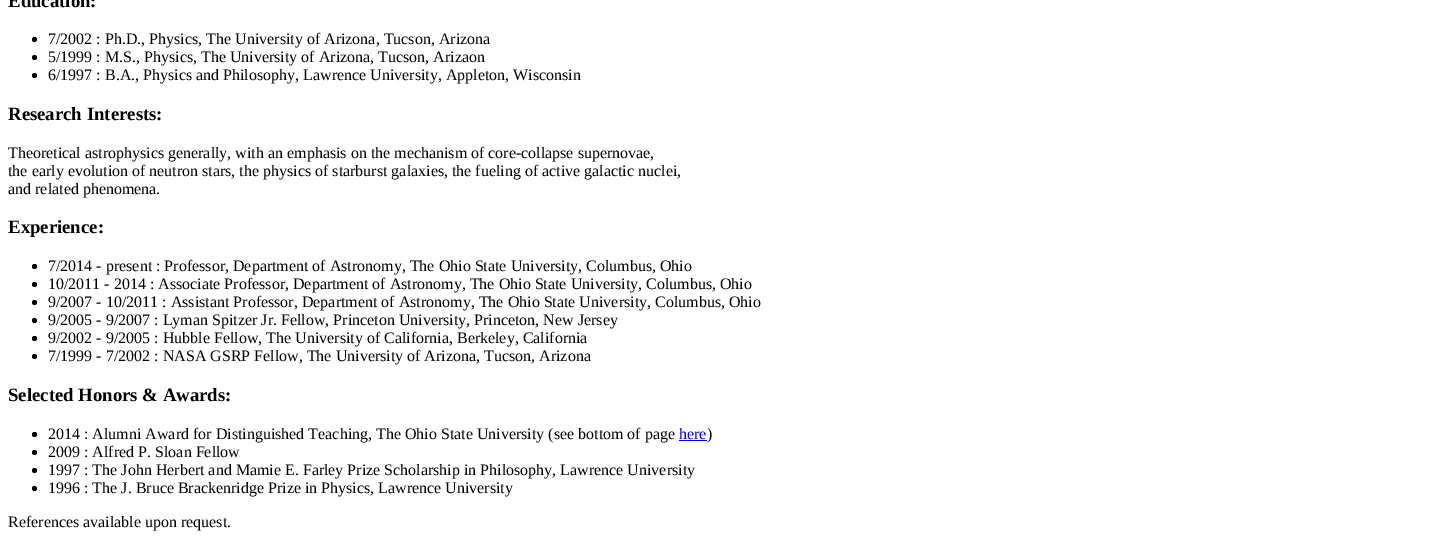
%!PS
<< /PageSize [1430 554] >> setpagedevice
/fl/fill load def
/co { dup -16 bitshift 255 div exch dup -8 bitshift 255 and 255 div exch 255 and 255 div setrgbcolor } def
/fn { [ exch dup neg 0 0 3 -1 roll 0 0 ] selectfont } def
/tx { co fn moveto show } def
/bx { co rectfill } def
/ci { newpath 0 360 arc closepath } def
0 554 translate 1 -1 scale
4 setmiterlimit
0 0 1430 554 16#FFFFFF bx
16#000000 co
34.5 39.5 2.5 ci fl
34.5 57.5 2.5 ci fl
34.5 75.5 2.5 ci fl
34.5 266.5 2.5 ci fl
34.5 284.5 2.5 ci fl
34.5 302.5 2.5 ci fl
34.5 320.5 2.5 ci fl
34.5 338.5 2.5 ci fl
34.5 356.5 2.5 ci fl
34.5 434.5 2.5 ci fl
679 440 28 1 16#0000EE bx
16#000000 co
34.5 452.5 2.5 ci fl
34.5 470.5 2.5 ci fl
34.5 488.5 2.5 ci fl
(Education:) 8 7 /LiberationSerif-Bold 18.75 16#000000 tx
(7/2002 : Ph.D., Physics, The University of Arizona, Tucson, Arizona) 48 44 /LiberationSerif-Regular 16 16#000000 tx
(5/1999 : M.S., Physics, The University of Arizona, Tucson, Arizaon) 48 62 /LiberationSerif-Regular 16 16#000000 tx
(6/1997 : B.A., Physics and Philosophy, Lawrence University, Appleton, Wisconsin) 48 80 /LiberationSerif-Regular 16 16#000000 tx
(Research Interests:) 8 120 /LiberationSerif-Bold 18.75 16#000000 tx
(Theoretical astrophysics generally, with an emphasis on the mechanism of core-collapse supernovae,) 8 158 /LiberationSerif-Regular 16 16#000000 tx
(the early evolution of neutron stars, the physics of starburst galaxies, the fueling of active galactic nuclei,) 8 176 /LiberationSerif-Regular 16 16#000000 tx
(and related phenomena.) 8 194 /LiberationSerif-Regular 16 16#000000 tx
(Experience:) 8 233 /LiberationSerif-Bold 18.75 16#000000 tx
(7/2014 - present : Professor, Department of Astronomy, The Ohio State University, Columbus, Ohio) 48 271 /LiberationSerif-Regular 16 16#000000 tx
(10/2011 - 2014 : Associate Professor, Department of Astronomy, The Ohio State University, Columbus, Ohio) 48 289 /LiberationSerif-Regular 16 16#000000 tx
(9/2007 - 10/2011 : Assistant Professor, Department of Astronomy, The Ohio State University, Columbus, Ohio) 48 307 /LiberationSerif-Regular 16 16#000000 tx
(9/2005 - 9/2007 : Lyman Spitzer Jr. Fellow, Princeton University, Princeton, New Jersey) 48 325 /LiberationSerif-Regular 16 16#000000 tx
(9/2002 - 9/2005 : Hubble Fellow, The University of California, Berkeley, California) 48 343 /LiberationSerif-Regular 16 16#000000 tx
(7/1999 - 7/2002 : NASA GSRP Fellow, The University of Arizona, Tucson, Arizona) 48 361 /LiberationSerif-Regular 16 16#000000 tx
(Selected Honors & Awards:) 8 401 /LiberationSerif-Bold 18.75 16#000000 tx
(2014 : Alumni Award for Distinguished Teaching, The Ohio State University \(see bottom of page) 48 439 /LiberationSerif-Regular 16 16#000000 tx
(here) 679 439 /LiberationSerif-Regular 16 16#0000EE tx
(\)) 707 439 /LiberationSerif-Regular 16 16#000000 tx
(2009 : Alfred P. Sloan Fellow) 48 457 /LiberationSerif-Regular 16 16#000000 tx
(1997 : The John Herbert and Mamie E. Farley Prize Scholarship in Philosophy, Lawrence University) 48 475 /LiberationSerif-Regular 16 16#000000 tx
(1996 : The J. Bruce Brackenridge Prize in Physics, Lawrence University) 48 493 /LiberationSerif-Regular 16 16#000000 tx
(References available upon request.) 8 527 /LiberationSerif-Regular 16 16#000000 tx
showpage
